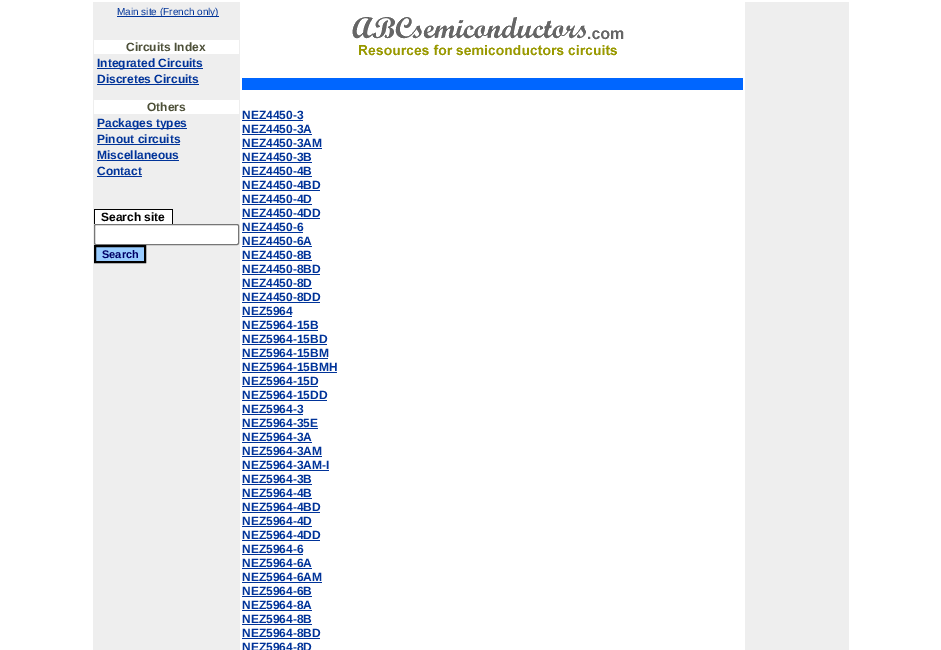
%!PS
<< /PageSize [941 650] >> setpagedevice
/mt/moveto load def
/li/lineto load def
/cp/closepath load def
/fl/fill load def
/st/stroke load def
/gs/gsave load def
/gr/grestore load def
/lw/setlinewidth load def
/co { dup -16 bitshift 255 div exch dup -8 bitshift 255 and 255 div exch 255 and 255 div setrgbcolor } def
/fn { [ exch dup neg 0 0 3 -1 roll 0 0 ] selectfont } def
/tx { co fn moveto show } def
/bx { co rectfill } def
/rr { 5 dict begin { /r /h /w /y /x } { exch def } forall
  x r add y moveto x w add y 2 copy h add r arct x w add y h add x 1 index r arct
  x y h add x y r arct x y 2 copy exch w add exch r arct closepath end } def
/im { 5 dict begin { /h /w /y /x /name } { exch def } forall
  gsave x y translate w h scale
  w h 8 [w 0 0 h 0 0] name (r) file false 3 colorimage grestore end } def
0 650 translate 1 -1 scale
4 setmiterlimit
0 0 941 650 16#FFFFFF bx
93 2 147 648 16#EEEEEE bx
117 16 102 1 16#003399 bx
94 40 145 14 16#FFFFFF bx
97 68 106 1 16#003399 bx
97 84 102 1 16#003399 bx
94 100 145 14 16#FFFFFF bx
97 128 90 1 16#003399 bx
97 144 83 1 16#003399 bx
97 160 82 1 16#003399 bx
97 176 45 1 16#003399 bx
95 210 77 14 16#FFFFFF bx
94 209 79 1 16#000000 bx
172 209 1 15 16#000000 bx
94 209 1 15 16#000000 bx
16#FFFFFF co
94.5 224.5 144 20 1.5 rr gs fl gr
16#767676 co
st
16#99CCFF co
95 246 mt 145 246 li 145 262 li 95 262 li cp gs fl gr
16#000000 co
2 lw
st
(media/1.raw) 352 17 272 39 im
242 78 501 12 16#0066FF bx
242 120 61 1 16#003399 bx
242 134 70 1 16#003399 bx
242 148 80 1 16#003399 bx
242 162 70 1 16#003399 bx
242 176 70 1 16#003399 bx
242 190 78 1 16#003399 bx
242 204 70 1 16#003399 bx
242 218 78 1 16#003399 bx
242 232 61 1 16#003399 bx
242 246 70 1 16#003399 bx
242 260 70 1 16#003399 bx
242 274 78 1 16#003399 bx
242 288 70 1 16#003399 bx
242 302 78 1 16#003399 bx
242 316 50 1 16#003399 bx
242 330 76 1 16#003399 bx
242 344 85 1 16#003399 bx
242 358 86 1 16#003399 bx
242 372 95 1 16#003399 bx
242 386 76 1 16#003399 bx
242 400 85 1 16#003399 bx
242 414 61 1 16#003399 bx
242 428 76 1 16#003399 bx
242 442 70 1 16#003399 bx
242 456 80 1 16#003399 bx
242 470 87 1 16#003399 bx
242 484 70 1 16#003399 bx
242 498 70 1 16#003399 bx
242 512 78 1 16#003399 bx
242 526 70 1 16#003399 bx
242 540 78 1 16#003399 bx
242 554 61 1 16#003399 bx
242 568 70 1 16#003399 bx
242 582 80 1 16#003399 bx
242 596 70 1 16#003399 bx
242 610 70 1 16#003399 bx
242 624 70 1 16#003399 bx
242 638 78 1 16#003399 bx
745 2 104 648 16#EEEEEE bx
(Main site \(French only\)) 117 15 /LiberationSans-Regular 10 16#003399 tx
(Circuits Index) 126 51 /LiberationSans-Bold 12 16#4D5038 tx
(Integrated Circuits) 97 67 /LiberationSans-Bold 12 16#003399 tx
(Discretes Circuits) 97 83 /LiberationSans-Bold 12 16#003399 tx
(Others) 147 111 /LiberationSans-Bold 12 16#4D5038 tx
(Packages types) 97 127 /LiberationSans-Bold 12 16#003399 tx
(Pinout circuits) 97 143 /LiberationSans-Bold 12 16#003399 tx
(Miscellaneous) 97 159 /LiberationSans-Bold 12 16#003399 tx
(Contact) 97 175 /LiberationSans-Bold 12 16#003399 tx
(Search site) 101 221 /LiberationSans-Bold 12 16#000000 tx
(Search) 102 258 /LiberationSans-Bold 11 16#000066 tx
(NEZ4450-3) 242 119 /LiberationSans-Bold 12 16#003399 tx
(NEZ4450-3A) 242 133 /LiberationSans-Bold 12 16#003399 tx
(NEZ4450-3AM) 242 147 /LiberationSans-Bold 12 16#003399 tx
(NEZ4450-3B) 242 161 /LiberationSans-Bold 12 16#003399 tx
(NEZ4450-4B) 242 175 /LiberationSans-Bold 12 16#003399 tx
(NEZ4450-4BD) 242 189 /LiberationSans-Bold 12 16#003399 tx
(NEZ4450-4D) 242 203 /LiberationSans-Bold 12 16#003399 tx
(NEZ4450-4DD) 242 217 /LiberationSans-Bold 12 16#003399 tx
(NEZ4450-6) 242 231 /LiberationSans-Bold 12 16#003399 tx
(NEZ4450-6A) 242 245 /LiberationSans-Bold 12 16#003399 tx
(NEZ4450-8B) 242 259 /LiberationSans-Bold 12 16#003399 tx
(NEZ4450-8BD) 242 273 /LiberationSans-Bold 12 16#003399 tx
(NEZ4450-8D) 242 287 /LiberationSans-Bold 12 16#003399 tx
(NEZ4450-8DD) 242 301 /LiberationSans-Bold 12 16#003399 tx
(NEZ5964) 242 315 /LiberationSans-Bold 12 16#003399 tx
(NEZ5964-15B) 242 329 /LiberationSans-Bold 12 16#003399 tx
(NEZ5964-15BD) 242 343 /LiberationSans-Bold 12 16#003399 tx
(NEZ5964-15BM) 242 357 /LiberationSans-Bold 12 16#003399 tx
(NEZ5964-15BMH) 242 371 /LiberationSans-Bold 12 16#003399 tx
(NEZ5964-15D) 242 385 /LiberationSans-Bold 12 16#003399 tx
(NEZ5964-15DD) 242 399 /LiberationSans-Bold 12 16#003399 tx
(NEZ5964-3) 242 413 /LiberationSans-Bold 12 16#003399 tx
(NEZ5964-35E) 242 427 /LiberationSans-Bold 12 16#003399 tx
(NEZ5964-3A) 242 441 /LiberationSans-Bold 12 16#003399 tx
(NEZ5964-3AM) 242 455 /LiberationSans-Bold 12 16#003399 tx
(NEZ5964-3AM-I) 242 469 /LiberationSans-Bold 12 16#003399 tx
(NEZ5964-3B) 242 483 /LiberationSans-Bold 12 16#003399 tx
(NEZ5964-4B) 242 497 /LiberationSans-Bold 12 16#003399 tx
(NEZ5964-4BD) 242 511 /LiberationSans-Bold 12 16#003399 tx
(NEZ5964-4D) 242 525 /LiberationSans-Bold 12 16#003399 tx
(NEZ5964-4DD) 242 539 /LiberationSans-Bold 12 16#003399 tx
(NEZ5964-6) 242 553 /LiberationSans-Bold 12 16#003399 tx
(NEZ5964-6A) 242 567 /LiberationSans-Bold 12 16#003399 tx
(NEZ5964-6AM) 242 581 /LiberationSans-Bold 12 16#003399 tx
(NEZ5964-6B) 242 595 /LiberationSans-Bold 12 16#003399 tx
(NEZ5964-8A) 242 609 /LiberationSans-Bold 12 16#003399 tx
(NEZ5964-8B) 242 623 /LiberationSans-Bold 12 16#003399 tx
(NEZ5964-8BD) 242 637 /LiberationSans-Bold 12 16#003399 tx
(NEZ5964-8D) 242 651 /LiberationSans-Bold 12 16#003399 tx
showpage
